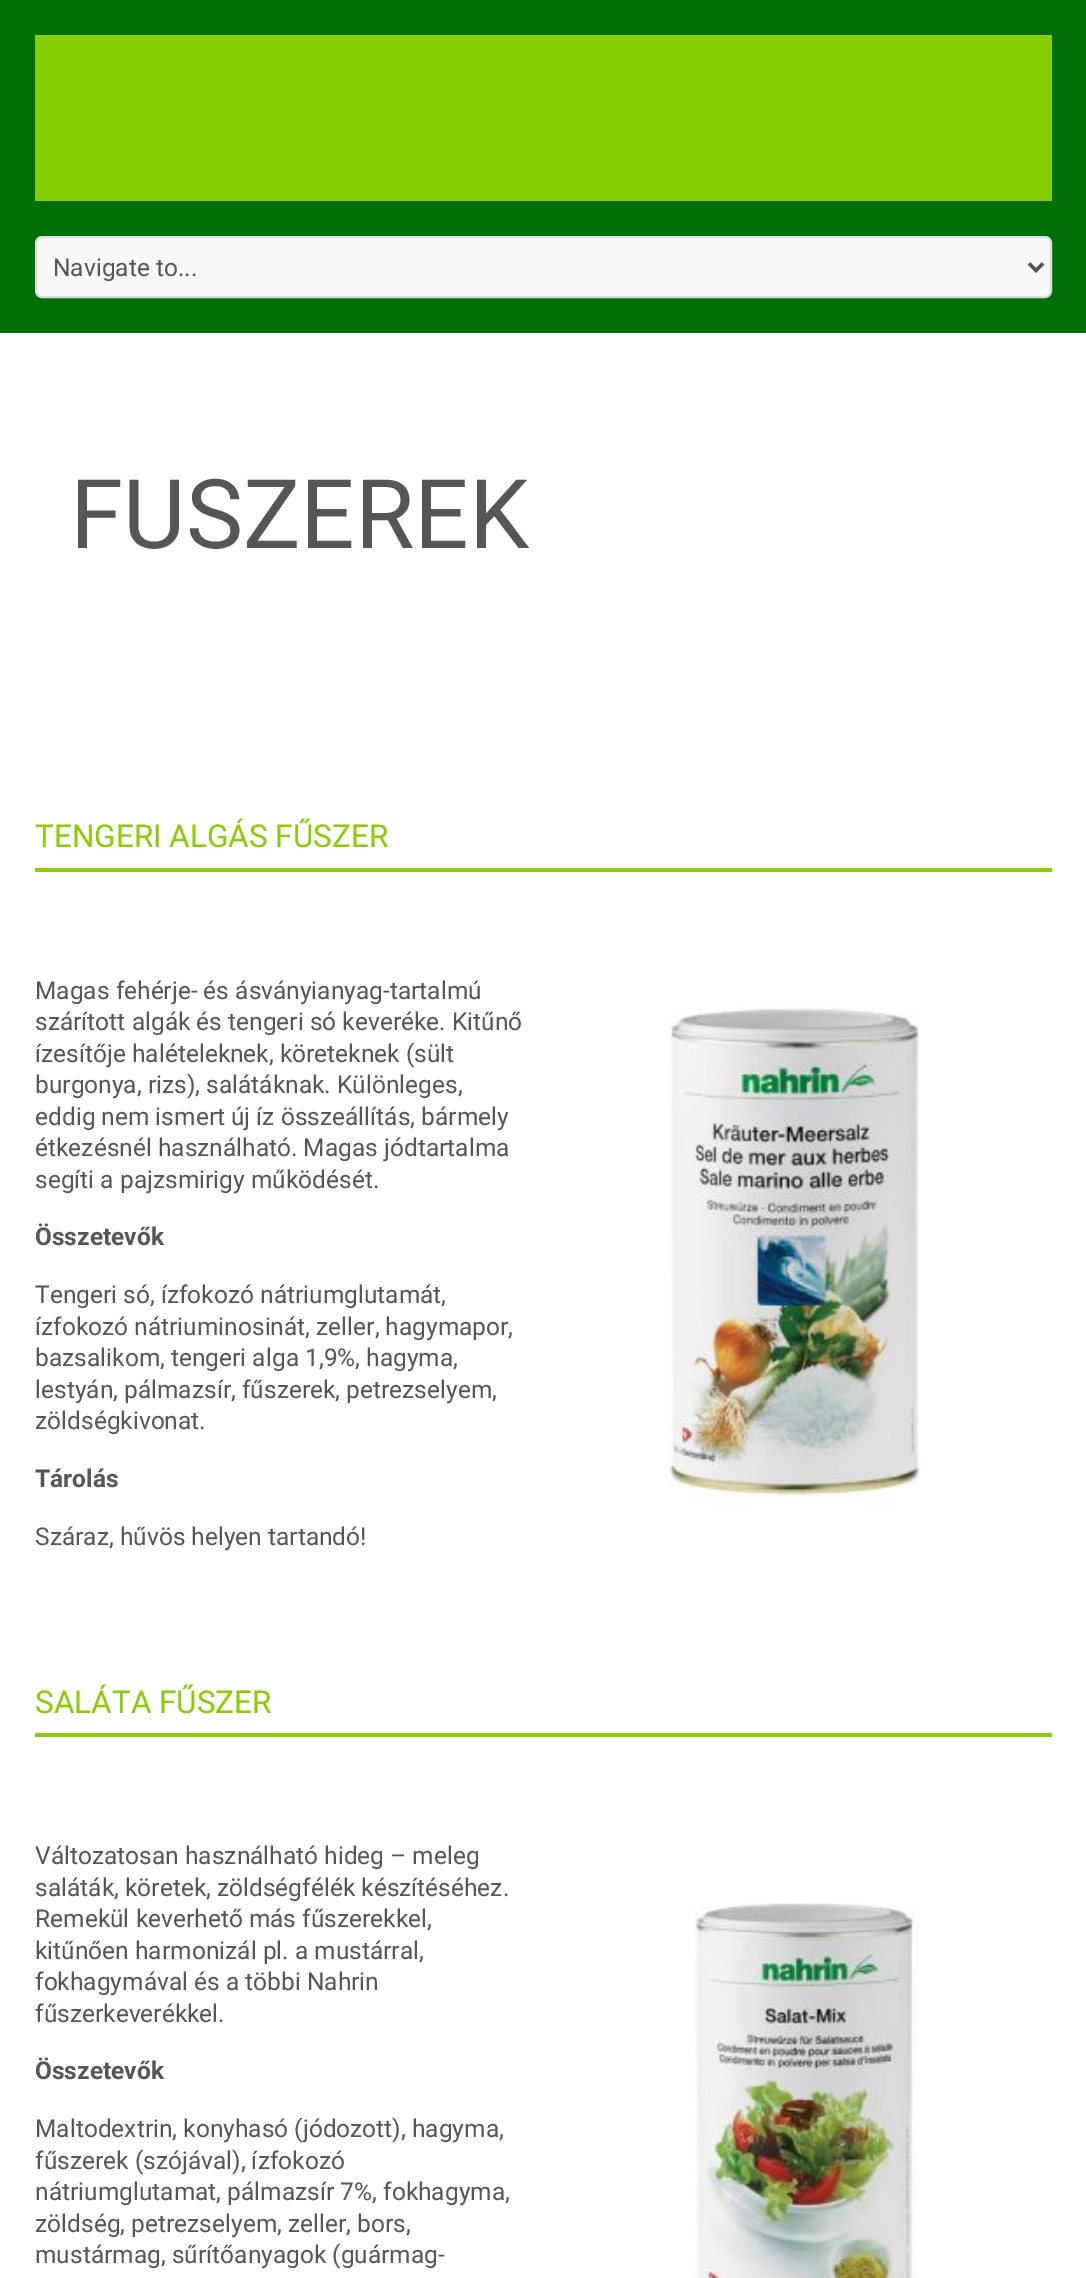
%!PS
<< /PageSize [1086 2278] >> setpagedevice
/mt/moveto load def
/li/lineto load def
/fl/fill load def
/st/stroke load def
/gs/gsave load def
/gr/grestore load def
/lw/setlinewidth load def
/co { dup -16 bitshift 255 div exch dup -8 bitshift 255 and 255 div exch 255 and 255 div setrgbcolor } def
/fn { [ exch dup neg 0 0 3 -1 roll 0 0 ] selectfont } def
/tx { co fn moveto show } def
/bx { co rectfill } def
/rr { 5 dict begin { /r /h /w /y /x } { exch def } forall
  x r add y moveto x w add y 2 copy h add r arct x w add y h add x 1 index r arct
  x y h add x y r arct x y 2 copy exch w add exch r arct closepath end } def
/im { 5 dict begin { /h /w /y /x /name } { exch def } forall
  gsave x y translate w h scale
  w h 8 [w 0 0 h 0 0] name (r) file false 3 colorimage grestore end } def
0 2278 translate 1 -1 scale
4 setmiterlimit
0 0 1086 2278 16#FFFFFF bx
0 0 1086 333 16#007007 bx
35 35 1017 166 16#87CE02 bx
16#F8F8F8 co
36 237 1015 60 6 rr gs fl gr
16#DDDDDD co
2 lw
st
16#555555 co
3.5 lw
1029 263.5 mt 1036 270.5 li 1043 263.5 li st
35 868 1017 4 16#87CE02 bx
(media/1.raw) 666 1007 254 502 im
35 1733 1017 4 16#87CE02 bx
(media/2.raw) 694 1903 225 375 im
(Navigate to...) 53 276 /Roboto-Regular 24.5 16#565656 tx
(FUSZEREK) 70 548 /Roboto-Regular 96.25 16#565656 tx
(TENGERI ALGÁS FŰSZER) 35 847 /Roboto-Regular 31.5 16#87CE02 tx
(Magas fehérje- és ásványianyag-tartalmú) 35 999 /Roboto-Regular 24.5 16#565656 tx
(szárított algák és tengeri só keveréke. Kitűnő) 35 1030 /Roboto-Regular 24.5 16#565656 tx
(ízesítője halételeknek, köreteknek \(sült) 35 1062 /Roboto-Regular 24.5 16#565656 tx
(burgonya, rizs\), salátáknak. Különleges,) 35 1093 /Roboto-Regular 24.5 16#565656 tx
(eddig nem ismert új íz összeállítás, bármely) 35 1125 /Roboto-Regular 24.5 16#565656 tx
(étkezésnél használható. Magas jódtartalma) 35 1156 /Roboto-Regular 24.5 16#565656 tx
(segíti a pajzsmirigy működését.) 35 1188 /Roboto-Regular 24.5 16#565656 tx
(Összetevők) 35 1245 /Roboto-Bold 24.5 16#565656 tx
(Tengeri só, ízfokozó nátriumglutamát,) 35 1303 /Roboto-Regular 24.5 16#565656 tx
(ízfokozó nátriuminosinát, zeller, hagymapor,) 35 1335 /Roboto-Regular 24.5 16#565656 tx
(bazsalikom, tengeri alga 1,9%, hagyma,) 35 1366 /Roboto-Regular 24.5 16#565656 tx
(lestyán, pálmazsír, fűszerek, petrezselyem,) 35 1398 /Roboto-Regular 24.5 16#565656 tx
(zöldségkivonat.) 35 1429 /Roboto-Regular 24.5 16#565656 tx
(Tárolás) 35 1487 /Roboto-Bold 24.5 16#565656 tx
(Száraz, hűvös helyen tartandó!) 35 1545 /Roboto-Regular 24.5 16#565656 tx
(SALÁTA FŰSZER) 35 1713 /Roboto-Regular 31.5 16#87CE02 tx
(Változatosan használható hideg – meleg) 35 1864 /Roboto-Regular 24.5 16#565656 tx
(saláták, köretek, zöldségfélék készítéséhez.) 35 1896 /Roboto-Regular 24.5 16#565656 tx
(Remekül keverhető más fűszerekkel,) 35 1927 /Roboto-Regular 24.5 16#565656 tx
(kitűnően harmonizál pl. a mustárral,) 35 1959 /Roboto-Regular 24.5 16#565656 tx
(fokhagymával és a többi Nahrin) 35 1990 /Roboto-Regular 24.5 16#565656 tx
(fűszerkeverékkel.) 35 2022 /Roboto-Regular 24.5 16#565656 tx
(Összetevők) 35 2079 /Roboto-Bold 24.5 16#565656 tx
(Maltodextrin, konyhasó \(jódozott\), hagyma,) 35 2137 /Roboto-Regular 24.5 16#565656 tx
(fűszerek \(szójával\), ízfokozó) 35 2169 /Roboto-Regular 24.5 16#565656 tx
(nátriumglutamat, pálmazsír 7%, fokhagyma,) 35 2200 /Roboto-Regular 24.5 16#565656 tx
(zöldség, petrezselyem, zeller, bors,) 35 2232 /Roboto-Regular 24.5 16#565656 tx
(mustármag, sűrítőanyagok \(guármag-) 35 2263 /Roboto-Regular 24.5 16#565656 tx
showpage
